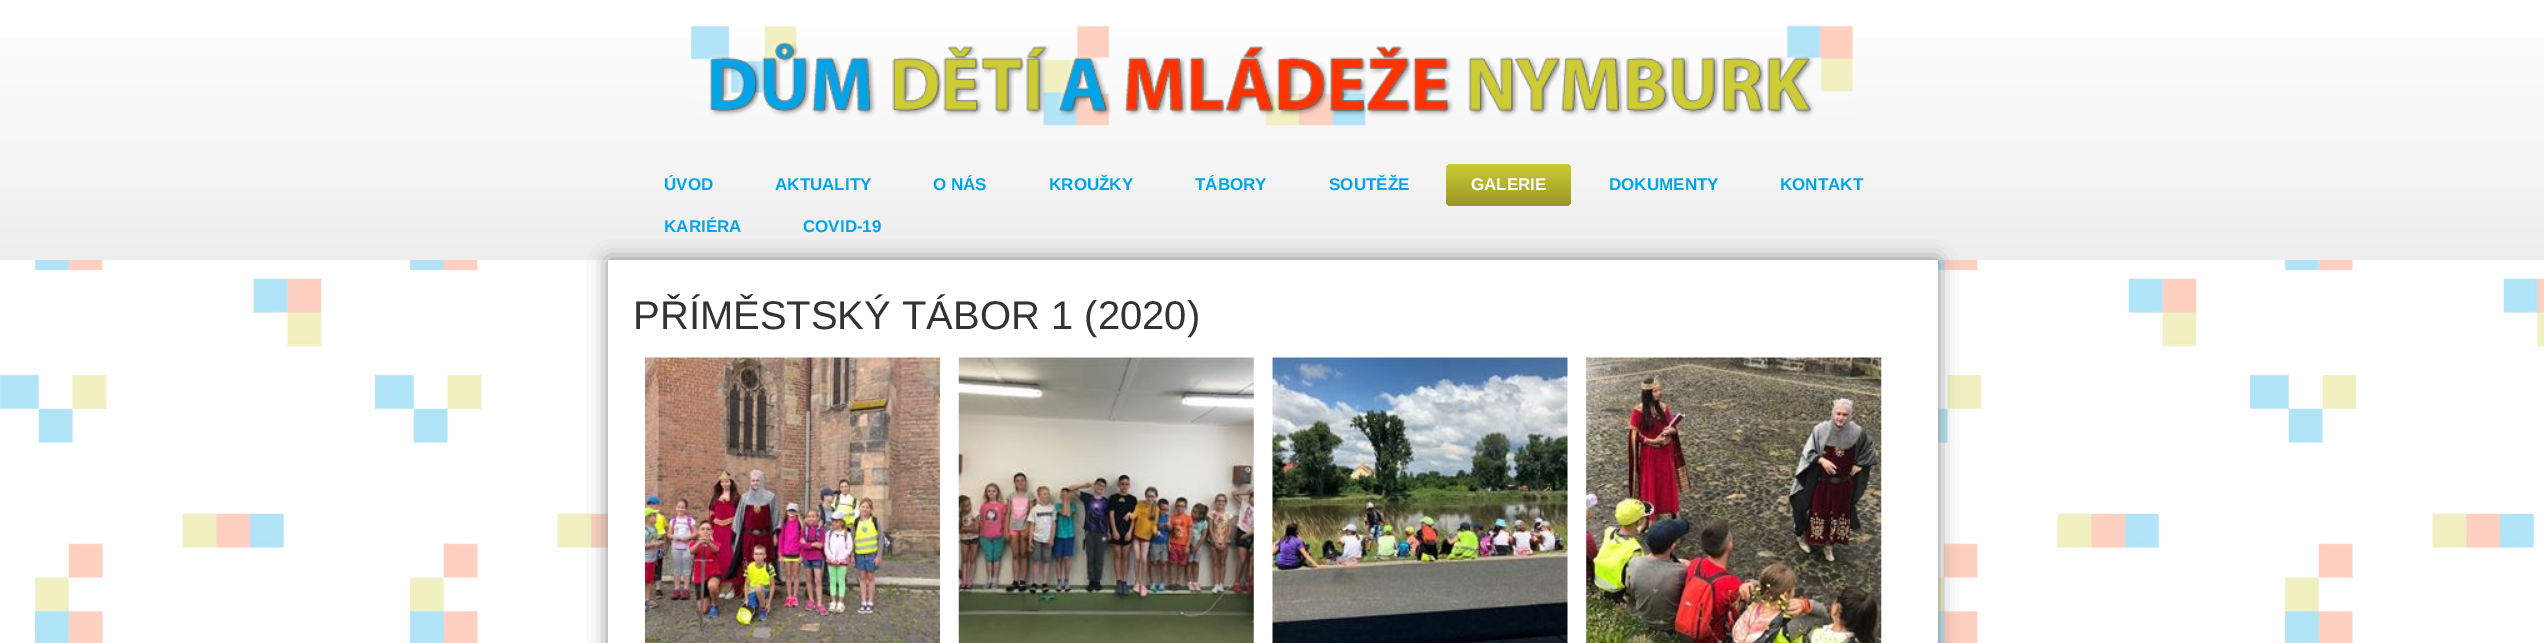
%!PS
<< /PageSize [2544 643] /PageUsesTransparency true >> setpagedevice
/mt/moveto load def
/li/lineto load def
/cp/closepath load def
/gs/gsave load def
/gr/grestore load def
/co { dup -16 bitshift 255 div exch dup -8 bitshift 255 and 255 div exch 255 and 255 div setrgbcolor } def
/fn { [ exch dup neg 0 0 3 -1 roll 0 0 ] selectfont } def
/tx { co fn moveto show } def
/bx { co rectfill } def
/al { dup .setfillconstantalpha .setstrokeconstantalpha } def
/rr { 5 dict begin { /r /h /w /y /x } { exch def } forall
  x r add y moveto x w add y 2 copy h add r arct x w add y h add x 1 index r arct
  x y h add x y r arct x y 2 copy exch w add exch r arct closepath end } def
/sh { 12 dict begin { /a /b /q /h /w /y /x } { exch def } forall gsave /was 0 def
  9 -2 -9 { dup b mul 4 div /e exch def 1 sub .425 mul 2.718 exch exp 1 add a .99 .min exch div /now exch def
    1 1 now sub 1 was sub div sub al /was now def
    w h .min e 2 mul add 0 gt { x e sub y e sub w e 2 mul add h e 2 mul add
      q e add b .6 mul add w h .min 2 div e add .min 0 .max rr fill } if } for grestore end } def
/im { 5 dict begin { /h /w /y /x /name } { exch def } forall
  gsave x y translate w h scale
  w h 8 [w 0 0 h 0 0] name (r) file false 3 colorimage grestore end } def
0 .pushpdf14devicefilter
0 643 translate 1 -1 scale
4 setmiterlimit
0 0 2544 643 16#FFFFFF bx
(media/1.raw) 0 260 2544 383 im
gs 0 38 mt 2544 38 li 2544 260 li 0 260 li cp clip newpath
<< /ShadingType 2 /ColorSpace /DeviceRGB /Coords [1273 0 1273 260] /Extend [true true] /Function << /FunctionType 2 /Domain [0 1] /C0 [1 1 1] /C1 [.933 .933 .933] /N 1 >> >> shfill gr
(media/2.raw) 691 25 1163 101 im
gs 1446 164 125 42 6 rr clip newpath
<< /ShadingType 2 /ColorSpace /DeviceRGB /Coords [1509 164 1509 206] /Extend [true true] /Function << /FunctionType 2 /Domain [0 1] /C0 [.804 .8 .204] /C1 [.6 .592 .153] /N 1 >> >> shfill gr
16#888888 co
608 260 1330 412 0 9.5 1 sh
608 260 1330 383 16#FFFFFF bx
(media/3.raw) 645 357 295 286 im
(media/4.raw) 958 357 296 286 im
(media/5.raw) 1272 357 296 286 im
(media/6.raw) 1586 357 296 286 im
(ÚVOD) 664 190 /LiberationSans-Bold 17 16#01A4E7 tx
(AKTUALITY) 775 190 /LiberationSans-Bold 17 16#01A4E7 tx
(O NÁS) 933 190 /LiberationSans-Bold 17 16#01A4E7 tx
(KROUŽKY) 1049 190 /LiberationSans-Bold 17 16#01A4E7 tx
(TÁBORY) 1195 190 /LiberationSans-Bold 17 16#01A4E7 tx
(SOUTĚŽE) 1329 190 /LiberationSans-Bold 17 16#01A4E7 tx
(GALERIE) 1471 190 /LiberationSans-Bold 17 16#FFFFFF tx
(DOKUMENTY) 1609 190 /LiberationSans-Bold 17 16#01A4E7 tx
(KONTAKT) 1780 190 /LiberationSans-Bold 17 16#01A4E7 tx
(KARIÉRA) 664 232 /LiberationSans-Bold 17 16#01A4E7 tx
(COVID-19) 803 232 /LiberationSans-Bold 17 16#01A4E7 tx
(PŘÍMĚSTSKÝ TÁBOR 1 \(2020\)) 633 329 /LiberationSans-Regular 40 16#333333 tx
.poppdf14devicefilter showpage
